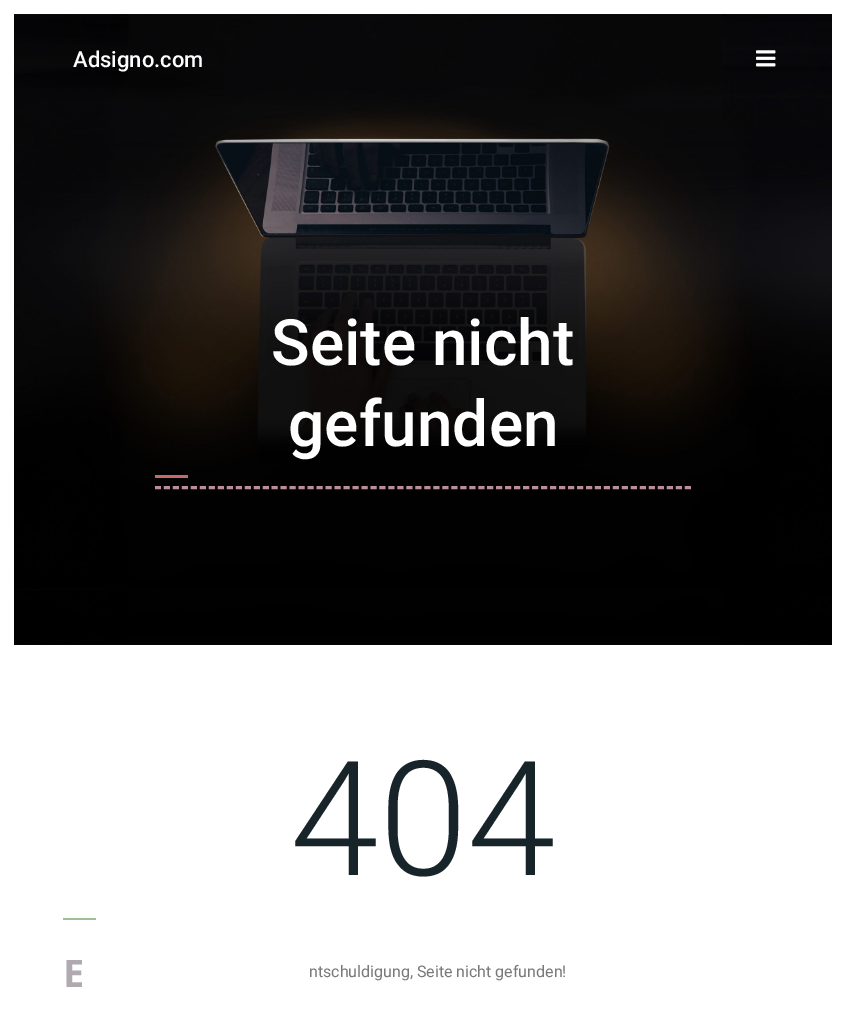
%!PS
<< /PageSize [846 1023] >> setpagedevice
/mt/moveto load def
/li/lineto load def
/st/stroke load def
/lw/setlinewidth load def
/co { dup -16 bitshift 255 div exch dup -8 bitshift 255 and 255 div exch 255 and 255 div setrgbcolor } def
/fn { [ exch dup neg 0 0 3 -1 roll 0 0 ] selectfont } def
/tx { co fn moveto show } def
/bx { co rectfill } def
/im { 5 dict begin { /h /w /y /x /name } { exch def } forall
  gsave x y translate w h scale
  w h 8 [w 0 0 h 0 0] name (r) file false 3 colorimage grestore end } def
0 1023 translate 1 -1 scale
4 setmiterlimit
0 0 846 1023 16#FFFFFF bx
(media/2.raw) 14 14 818 631 im
(media/1.raw) 756 50 20 17 im
16#BB8F99 co
3 lw
[6 2.98] 0 setdash
155 487.5 mt 691 487.5 li st
155 475 33 3 16#C76A67 bx
63 918 33 2 16#A0BC98 bx
(Adsigno.com) 73 67 /Roboto-Medium 22 16#FFFFFF tx
(Seite nicht) 271 365 /Roboto-Medium 64 16#FFFFFF tx
(gefunden) 288 446 /Roboto-Medium 64 16#FFFFFF tx
(404) 290 875 /Roboto-Light 160 16#17252A tx
(E) 63 987 /NotoSans-Bold 38 16#B0AAB0 tx
(ntschuldigung, Seite nicht gefunden!) 309 977 /Roboto-Regular 16 16#7A7A7A tx
showpage
